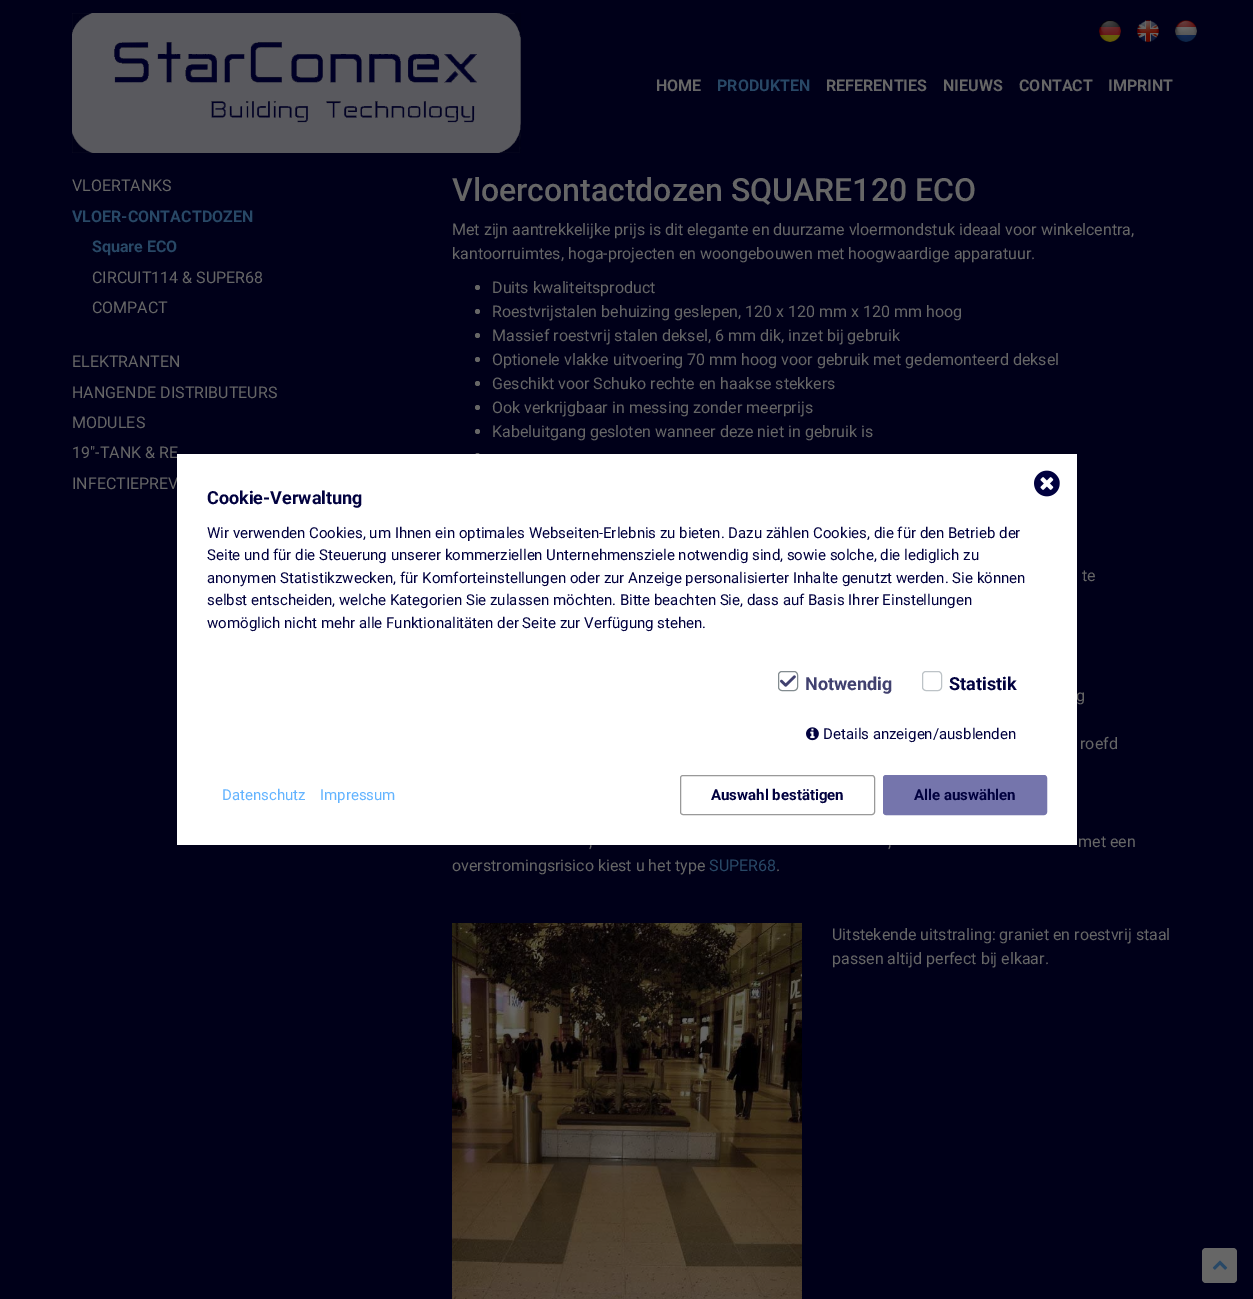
%!PS
<< /PageSize [1253 1299] >> setpagedevice
/fl/fill load def
/st/stroke load def
/gs/gsave load def
/gr/grestore load def
/co { dup -16 bitshift 255 div exch dup -8 bitshift 255 and 255 div exch 255 and 255 div setrgbcolor } def
/fn { [ exch dup neg 0 0 3 -1 roll 0 0 ] selectfont } def
/tx { co fn moveto show } def
/bx { co rectfill } def
/ci { newpath 0 360 arc closepath } def
/rr { 5 dict begin { /r /h /w /y /x } { exch def } forall
  x r add y moveto x w add y 2 copy h add r arct x w add y h add x 1 index r arct
  x y h add x y r arct x y 2 copy exch w add exch r arct closepath end } def
/im { 5 dict begin { /h /w /y /x /name } { exch def } forall
  gsave x y translate w h scale
  w h 8 [w 0 0 h 0 0] name (r) file false 3 colorimage grestore end } def
0 1299 translate 1 -1 scale
4 setmiterlimit
0 0 1253 1299 16#000019 bx
(media/1.raw) 72 13 449 140 im
(media/2.raw) 1099 20 22 22 im
(media/3.raw) 1137 20 22 22 im
(media/4.raw) 1175 20 22 22 im
16#666666 co
477.5 287.5 2.5 ci fl
477.5 311.5 2.5 ci fl
477.5 335.5 2.5 ci fl
477.5 359.5 2.5 ci fl
477.5 383.5 2.5 ci fl
477.5 407.5 2.5 ci fl
477.5 431.5 2.5 ci fl
477.5 455.5 2.5 ci fl
(media/5.raw) 452 923 350 376 im
1202 1248 35 35 4 rr fl
(media/9.raw) 1212 1260 16 10 im
(HOME) 656 91 /Roboto-Bold 16 16#666666 tx
(PRODUKTEN) 717 91 /Roboto-Bold 16 16#284866 tx
(REFERENTIES) 826 91 /Roboto-Bold 16 16#666666 tx
(NIEUWS) 943 91 /Roboto-Bold 16 16#666666 tx
(CONTACT) 1019 91 /Roboto-Bold 16 16#666666 tx
(IMPRINT) 1108 91 /Roboto-Bold 16 16#666666 tx
(VLOERTANKS) 72 191 /Roboto-Regular 16 16#666666 tx
(VLOER-CONTACTDOZEN) 72 222 /Roboto-Bold 16 16#284866 tx
(Square ECO) 92 252 /Roboto-Bold 16 16#284866 tx
(CIRCUIT114 & SUPER68) 92 283 /Roboto-Regular 16 16#666666 tx
(COMPACT) 92 313 /Roboto-Regular 16 16#666666 tx
(ELEKTRANTEN) 72 367 /Roboto-Regular 16 16#666666 tx
(HANGENDE DISTRIBUTEURS) 72 398 /Roboto-Regular 16 16#666666 tx
(MODULES) 72 428 /Roboto-Regular 16 16#666666 tx
(19"-TANK & RE) 72 458 /Roboto-Regular 16 16#666666 tx
(INFECTIEPREV) 72 489 /Roboto-Regular 16 16#666666 tx
(Vloercontactdozen SQUARE120 ECO) 452 201 /Roboto-Medium 32 16#666666 tx
(Met zijn aantrekkelijke prijs is dit elegante en duurzame vloermondstuk ideaal voor winkelcentra,) 452 235 /Roboto-Regular 16 16#666666 tx
(kantoorruimtes, hoga-projecten en woongebouwen met hoogwaardige apparatuur.) 452 259 /Roboto-Regular 16 16#666666 tx
(Duits kwaliteitsproduct) 492 293 /Roboto-Regular 16 16#666666 tx
(Roestvrijstalen behuizing geslepen, 120 x 120 mm x 120 mm hoog) 492 317 /Roboto-Regular 16 16#666666 tx
(Massief roestvrij stalen deksel, 6 mm dik, inzet bij gebruik) 492 341 /Roboto-Regular 16 16#666666 tx
(Optionele vlakke uitvoering 70 mm hoog voor gebruik met gedemonteerd deksel) 492 365 /Roboto-Regular 16 16#666666 tx
(Geschikt voor Schuko rechte en haakse stekkers) 492 389 /Roboto-Regular 16 16#666666 tx
(Ook verkrijgbaar in messing zonder meerprijs) 492 413 /Roboto-Regular 16 16#666666 tx
(Kabeluitgang gesloten wanneer deze niet in gebruik is) 492 437 /Roboto-Regular 16 16#666666 tx
(te) 1082 581 /Roboto-Regular 16 16#666666 tx
(g) 1076 701 /Roboto-Regular 16 16#666666 tx
(roefd) 1080 749 /Roboto-Regular 16 16#666666 tx
(,) 589 847 /Roboto-Regular 16 16#666666 tx
(,) 888 847 /Roboto-Regular 16 16#666666 tx
(met een) 1078 847 /Roboto-Regular 16 16#666666 tx
(overstromingsrisico kiest u het type) 452 871 /Roboto-Regular 16 16#666666 tx
(SUPER68) 709 871 /Roboto-Regular 16 16#284866 tx
(.) 776 871 /Roboto-Regular 16 16#666666 tx
(Uitstekende uitstraling: graniet en roestvrij staal) 832 940 /Roboto-Regular 16 16#666666 tx
(passen altijd perfect bij elkaar.) 832 964 /Roboto-Regular 16 16#666666 tx
177 454 900 391 16#FFFFFF bx
(media/6.raw) 1034 470 26 27 im
(Cookie-Verwaltung) 207 504 /Roboto-Bold 18 16#01013F tx
(Wir verwenden Cookies, um Ihnen ein optimales Webseiten-Erlebnis zu bieten. Dazu zählen Cookies, die für den Betrieb der) 207 538 /Roboto-Regular 15 16#01013F tx
(Seite und für die Steuerung unserer kommerziellen Unternehmensziele notwendig sind, sowie solche, die lediglich zu) 207 560 /Roboto-Regular 15 16#01013F tx
(anonymen Statistikzwecken, für Komforteinstellungen oder zur Anzeige personalisierter Inhalte genutzt werden. Sie können) 207 583 /Roboto-Regular 15 16#01013F tx
(selbst entscheiden, welche Kategorien Sie zulassen möchten. Bitte beachten Sie, dass auf Basis Ihrer Einstellungen) 207 605 /Roboto-Regular 15 16#01013F tx
(womöglich nicht mehr alle Funktionalitäten der Seite zur Verfügung stehen.) 207 628 /Roboto-Regular 15 16#01013F tx
16#838C90 co
778.5 671.5 19 19 3.5 rr st
(media/7.raw) 780 675 16 12 im
(Notwendig) 805 690 /Roboto-Bold 18 16#41416F tx
16#BDC3C7 co
922.5 671.5 19 19 3.5 rr st
(Statistik) 949 690 /Roboto-Bold 18 16#01013F tx
(media/8.raw) 806 727 13 14 im
(Details anzeigen/ausblenden) 823 739 /Roboto-Regular 15 16#01013F tx
(Datenschutz) 222 800 /Roboto-Regular 15 16#63B4FF tx
(Impressum) 320 800 /Roboto-Regular 15 16#63B4FF tx
16#999999 co
680.5 775.5 194 39 2.5 rr st
(Auswahl bestätigen) 711 800 /Roboto-Bold 15 16#01013F tx
16#7575AC co
883.5 775.5 163 39 2.5 rr gs fl gr
st
(Alle auswählen) 914 800 /Roboto-Bold 15 16#01013F tx
showpage
